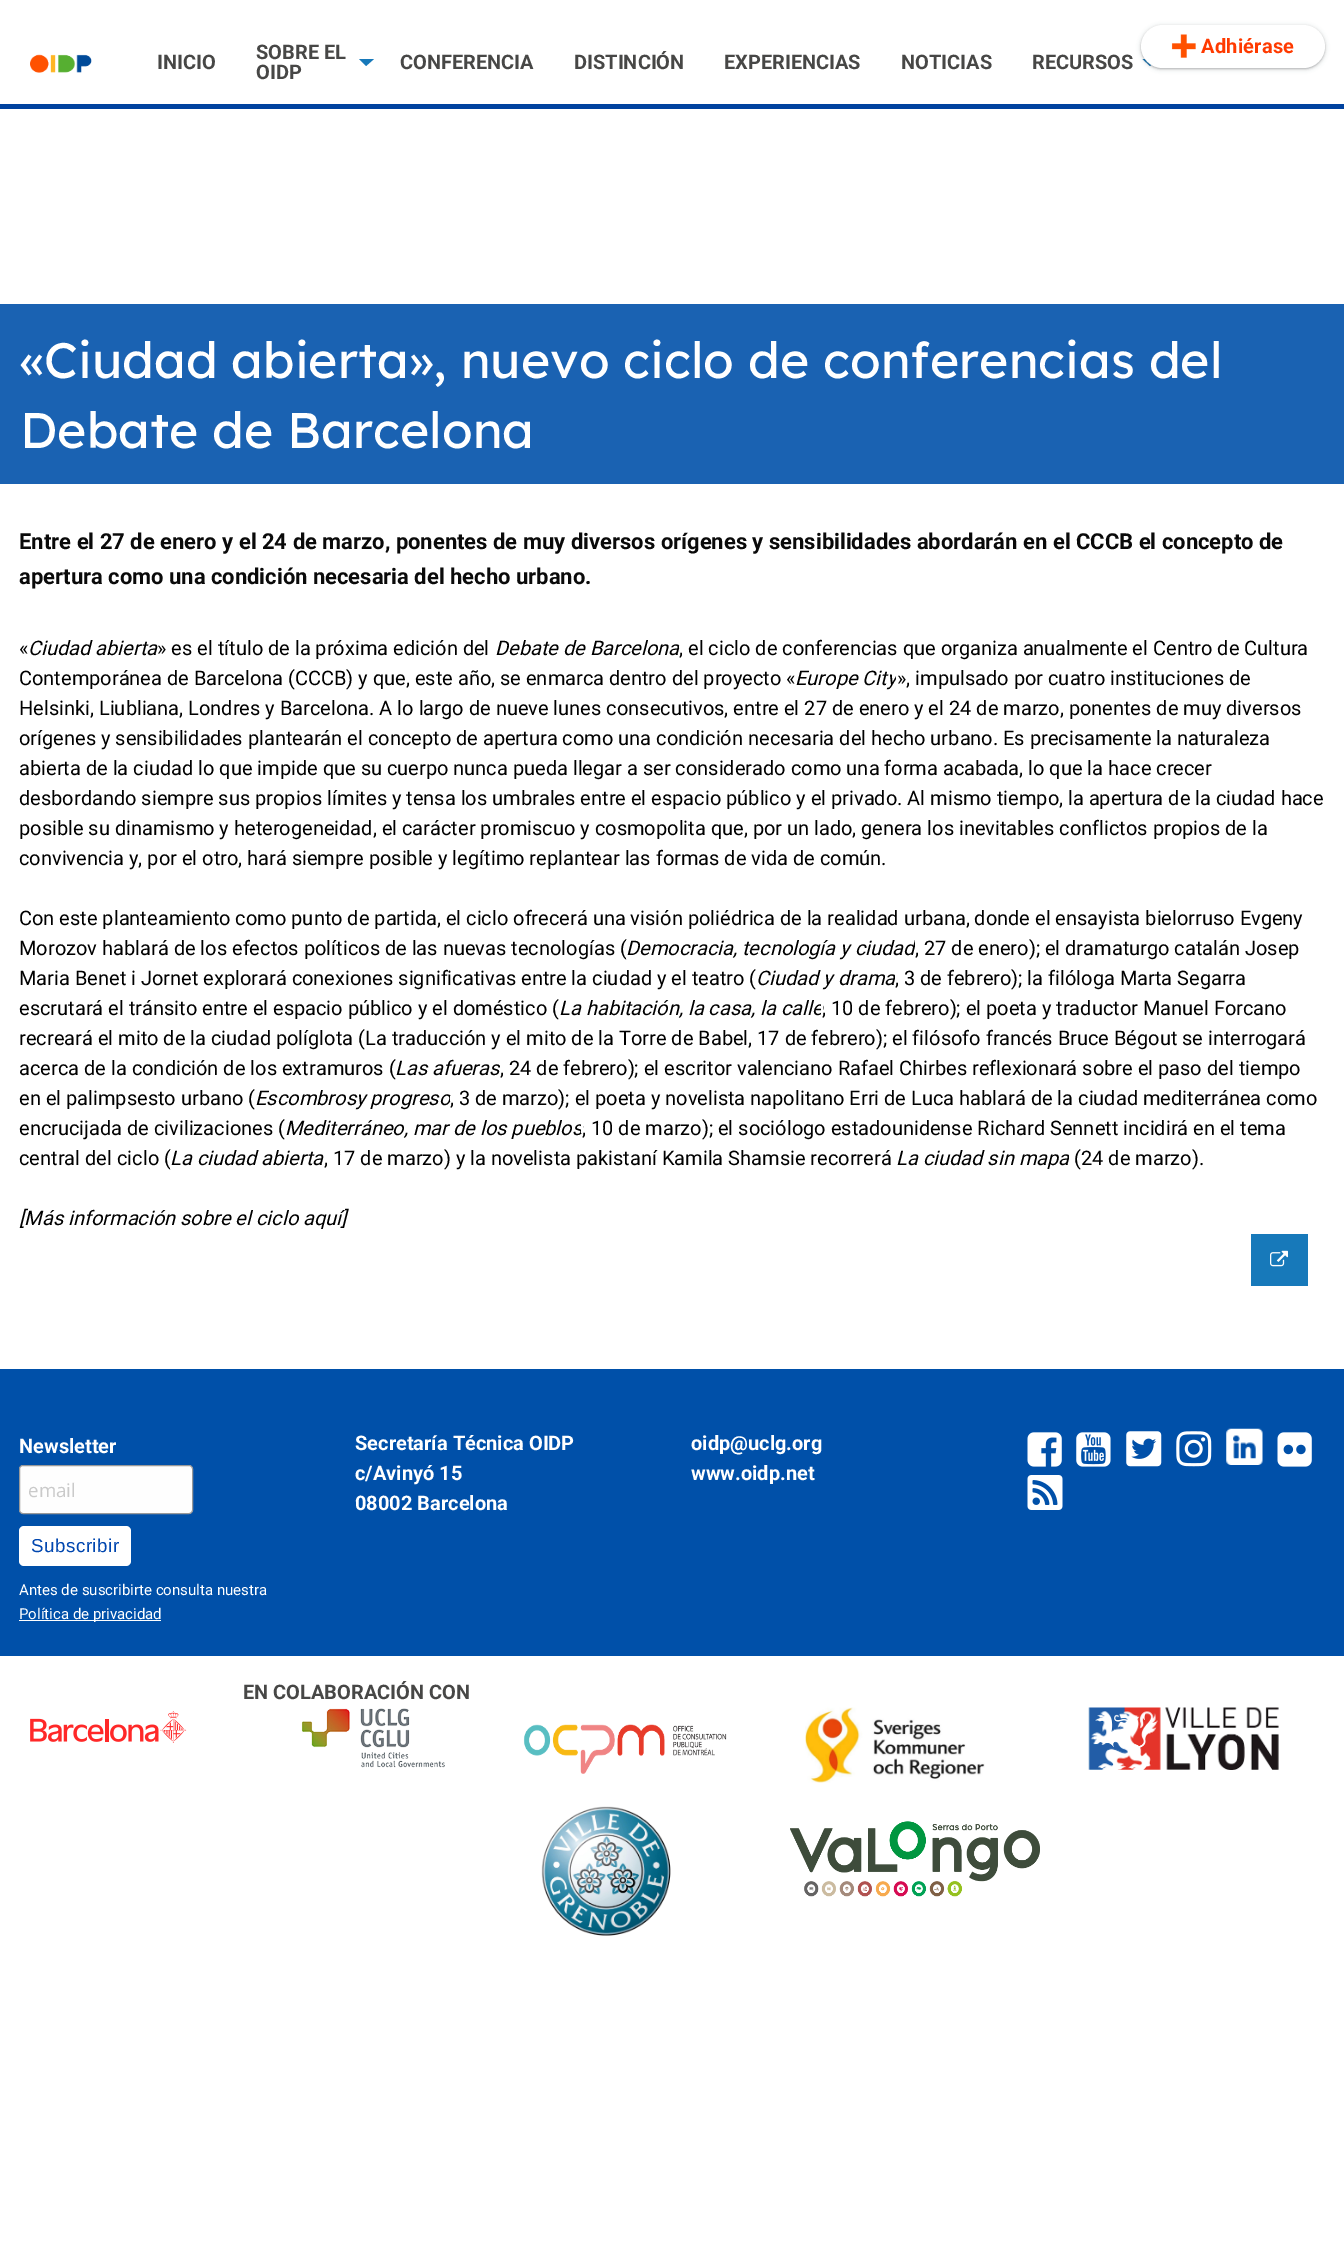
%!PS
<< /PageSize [1344 2252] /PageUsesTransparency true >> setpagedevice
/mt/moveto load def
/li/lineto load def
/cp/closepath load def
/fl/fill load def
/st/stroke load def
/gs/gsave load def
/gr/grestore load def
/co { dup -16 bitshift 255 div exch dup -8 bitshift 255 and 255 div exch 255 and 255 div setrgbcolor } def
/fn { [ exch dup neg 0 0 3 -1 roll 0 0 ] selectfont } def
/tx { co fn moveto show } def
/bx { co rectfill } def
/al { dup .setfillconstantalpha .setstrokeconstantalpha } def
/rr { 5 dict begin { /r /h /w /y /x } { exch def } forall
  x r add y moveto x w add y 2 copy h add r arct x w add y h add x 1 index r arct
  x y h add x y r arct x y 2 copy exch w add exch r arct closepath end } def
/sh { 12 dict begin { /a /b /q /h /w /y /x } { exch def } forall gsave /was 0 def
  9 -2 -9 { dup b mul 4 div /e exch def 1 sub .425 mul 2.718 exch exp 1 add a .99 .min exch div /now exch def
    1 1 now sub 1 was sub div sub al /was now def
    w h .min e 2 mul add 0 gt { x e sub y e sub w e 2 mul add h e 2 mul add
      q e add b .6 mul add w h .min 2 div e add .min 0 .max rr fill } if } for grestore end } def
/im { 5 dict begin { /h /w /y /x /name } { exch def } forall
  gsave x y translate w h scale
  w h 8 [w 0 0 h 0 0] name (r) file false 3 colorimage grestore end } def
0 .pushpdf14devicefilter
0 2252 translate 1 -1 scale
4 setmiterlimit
0 0 1344 2252 16#FFFFFF bx
(media/1.raw) 30 54 62 19 im
16#1779BA co
359 59 mt 374 59 li 366 66 li cp fl
1142.5 59 mt 1157.5 59 li 1150 66 li cp fl
16#3C4043 co
1140 25 186 45 22.5 2 .15 sh
1141 26 184 43 21.5 1 .3 sh
16#FFFFFF co
1141 25 184 43 21.5 rr fl
(media/2.raw) 1171 34 25 24 im
0 104 1344 5 16#00429F bx
0 304 1344 180 16#1A62B2 bx
1251 1234 57 52 16#1779BA bx
(media/3.raw) 1270 1250 18 17 im
0 1369 1344 287 16#0050A9 bx
16#FEFEFE co
19.5 1465.5 173 48 3.5 rr gs fl gr
16#999999 co
st
16#FFFFFF co
19 1526 112 40 5 rr fl
19 1620 142 1 16#FFFFFF bx
(media/4.raw) 1027 1432 35 35 im
(media/5.raw) 1076 1432 35 35 im
(media/6.raw) 1126 1431 36 36 im
(media/7.raw) 1176 1431 36 36 im
(media/8.raw) 1226 1428 37 37 im
(media/9.raw) 1277 1432 35 35 im
(media/10.raw) 1027 1475 36 35 im
(media/11.raw) 301 1708 144 60 im
(media/12.raw) 523 1724 204 50 im
(media/13.raw) 805 1707 180 76 im
(media/14.raw) 1088 1707 191 63 im
(media/15.raw) 541 1806 130 130 im
(media/16.raw) 790 1821 250 76 im
(media/17.raw) 30 1711 157 32 im
(INICIO) 157 69 /Roboto-Bold 20 16#474746 tx
(SOBRE EL) 256 59 /Roboto-Bold 20 16#474746 tx
(OIDP) 256 79 /Roboto-Bold 20 16#474746 tx
(CONFERENCIA) 400 69 /Roboto-Bold 20 16#474746 tx
(DISTINCIÓN) 574 69 /Roboto-Bold 20 16#474746 tx
(EXPERIENCIAS) 724 69 /Roboto-Bold 20 16#474746 tx
(NOTICIAS) 901 69 /Roboto-Bold 20 16#474746 tx
(RECURSOS) 1032 69 /Roboto-Bold 20 16#474746 tx
16#FF3A00 co
1201 53 mt .25 0 (Adhiérase) ashow
(«Ciudad abierta», nuevo ciclo de conferencias del) 20 378 /LexendDeca-Regular 50 16#FFFFFF tx
(Debate de Barcelona) 20 448 /LexendDeca-Regular 50 16#FFFFFF tx
(Entre el 27 de enero y el 24 de marzo, ponentes de muy diversos orígenes y sensibilidades abordarán en el CCCB el concepto de) 19 549 /Roboto-Bold 22 16#0A0A0A tx
(apertura como una condición necesaria del hecho urbano.) 19 584 /Roboto-Bold 22 16#0A0A0A tx
(«) 19 655 /Roboto-Regular 20 16#000000 tx
(Ciudad abierta) 28 655 /Roboto-Italic 20 16#000000 tx
(» es el título de la próxima edición del) 157 655 /Roboto-Regular 20 16#000000 tx
(Debate de Barcelona) 495 655 /Roboto-Italic 20 16#000000 tx
679 646 1 2 16#FFFFFF bx
(, el ciclo de conferencias que organiza anualmente el Centro de Cultura) 679 655 /Roboto-Regular 20 16#000000 tx
(Contemporánea de Barcelona \(CCCB\) y que, este año, se enmarca dentro del proyecto «) 19 685 /Roboto-Regular 20 16#000000 tx
(Europe City) 795 685 /Roboto-Italic 20 16#000000 tx
896 674 3 6 16#FFFFFF bx
(», impulsado por cuatro instituciones de) 897 685 /Roboto-Regular 20 16#000000 tx
(Helsinki, Liubliana, Londres y Barcelona. A lo largo de nueve lunes consecutivos, entre el 27 de enero y el 24 de marzo, ponentes de muy diversos) 19 715 /Roboto-Regular 20 16#000000 tx
(orígenes y sensibilidades plantearán el concepto de apertura como una condición necesaria del hecho urbano. Es precisamente la naturaleza) 19 745 /Roboto-Regular 20 16#000000 tx
(abierta de la ciudad lo que impide que su cuerpo nunca pueda llegar a ser considerado como una forma acabada, lo que la hace crecer) 19 775 /Roboto-Regular 20 16#000000 tx
(desbordando siempre sus propios límites y tensa los umbrales entre el espacio público y el privado. Al mismo tiempo, la apertura de la ciudad hace) 19 805 /Roboto-Regular 20 16#000000 tx
(posible su dinamismo y heterogeneidad, el carácter promiscuo y cosmopolita que, por un lado, genera los inevitables conflictos propios de la) 19 835 /Roboto-Regular 20 16#000000 tx
(convivencia y, por el otro, hará siempre posible y legítimo replantear las formas de vida de común.) 19 865 /Roboto-Regular 20 16#000000 tx
(Con este planteamiento como punto de partida, el ciclo ofrecerá una visión poliédrica de la realidad urbana, donde el ensayista bielorruso Evgeny) 19 925 /Roboto-Regular 20 16#000000 tx
(Morozov hablará de los efectos políticos de las nuevas tecnologías \() 19 955 /Roboto-Regular 20 16#000000 tx
(Democracia, tecnología y ciudad) 626 955 /Roboto-Italic 20 16#000000 tx
626 940 1 19 16#FFFFFF bx
915 940 3 9 16#FFFFFF bx
(, 27 de enero\); el dramaturgo catalán Josep) 915 955 /Roboto-Regular 20 16#000000 tx
(Maria Benet i Jornet explorará conexiones significativas entre la ciudad y el teatro \() 19 985 /Roboto-Regular 20 16#000000 tx
(Ciudad y drama) 756 985 /Roboto-Italic 20 16#000000 tx
895 975 1 5 16#FFFFFF bx
(, 3 de febrero\); la filóloga Marta Segarra) 895 985 /Roboto-Regular 20 16#000000 tx
(escrutará el tránsito entre el espacio público y el doméstico \() 19 1015 /Roboto-Regular 20 16#000000 tx
(La habitación, la casa, la calle) 559 1015 /Roboto-Italic 20 16#000000 tx
821 1004 2 10 16#FFFFFF bx
(, 10 de febrero\); el poeta y traductor Manuel Forcano) 822 1015 /Roboto-Regular 20 16#000000 tx
(recreará el mito de la ciudad políglota \(La traducción y el mito de la Torre de Babel, 17 de febrero\); el filósofo francés Bruce Bégout se interrogará) 19 1045 /Roboto-Regular 20 16#000000 tx
(acerca de la condición de los extramuros \() 19 1075 /Roboto-Regular 20 16#000000 tx
(Las afueras) 395 1075 /Roboto-Italic 20 16#000000 tx
500 1065 1 3 16#FFFFFF bx
(, 24 de febrero\); el escritor valenciano Rafael Chirbes reflexionará sobre el paso del tiempo) 500 1075 /Roboto-Regular 20 16#000000 tx
(en el palimpsesto urbano \() 19 1105 /Roboto-Regular 20 16#000000 tx
(Escombrosy progreso) 255 1105 /Roboto-Italic 20 16#000000 tx
450 1096 1 5 16#FFFFFF bx
(, 3 de marzo\); el poeta y novelista napolitano Erri de Luca hablará de la ciudad mediterránea como) 450 1105 /Roboto-Regular 20 16#000000 tx
(encrucijada de civilizaciones \() 19 1135 /Roboto-Regular 20 16#000000 tx
(Mediterráneo, mar de los pueblos) 285 1135 /Roboto-Italic 20 16#000000 tx
581 1124 2 9 16#FFFFFF bx
(, 10 de marzo\); el sociólogo estadounidense Richard Sennett incidirá en el tema) 582 1135 /Roboto-Regular 20 16#000000 tx
(central del ciclo \() 19 1165 /Roboto-Regular 20 16#000000 tx
(La ciudad abierta) 170 1165 /Roboto-Italic 20 16#000000 tx
170 1150 1 19 16#FFFFFF bx
324 1156 1 2 16#FFFFFF bx
(, 17 de marzo\) y la novelista pakistaní Kamila Shamsie recorrerá) 324 1165 /Roboto-Regular 20 16#000000 tx
(La ciudad sin mapa) 896 1165 /Roboto-Italic 20 16#000000 tx
(\(24 de marzo\).) 1074 1165 /Roboto-Regular 20 16#000000 tx
1069 1155 1 5 16#FFFFFF bx
([Más información sobre el ciclo aquí]) 19 1225 /Roboto-Italic 20 16#000000 tx
(Newsletter) 19 1453 /Roboto-Bold 20 16#FFFFFF tx
(email) 28 1497 /OpenSans-Regular 18.75 16#CACACA tx
/LiberationSans-Regular 18.75 fn
16#0046AF co
31 1552 mt .5 0 (Subscribir) ashow
(Antes de suscribirte consulta nuestra) 19 1595 /Roboto-Regular 15 16#FFFFFF tx
(Política de privacidad) 19 1619 /Roboto-Regular 15 16#FFFFFF tx
(Secretaría Técnica OIDP) 355 1450 /Roboto-Bold 20 16#FFFFFF tx
(c/Avinyó 15) 355 1480 /Roboto-Bold 20 16#FFFFFF tx
(08002 Barcelona) 355 1510 /Roboto-Bold 20 16#FFFFFF tx
(oidp@uclg.org) 691 1450 /Roboto-Bold 20 16#FFFFFF tx
(www.oidp.net) 691 1480 /Roboto-Bold 20 16#FFFFFF tx
(EN COLABORACIÓN CON) 243 1699 /Roboto-Bold 20 16#474746 tx
.poppdf14devicefilter showpage
